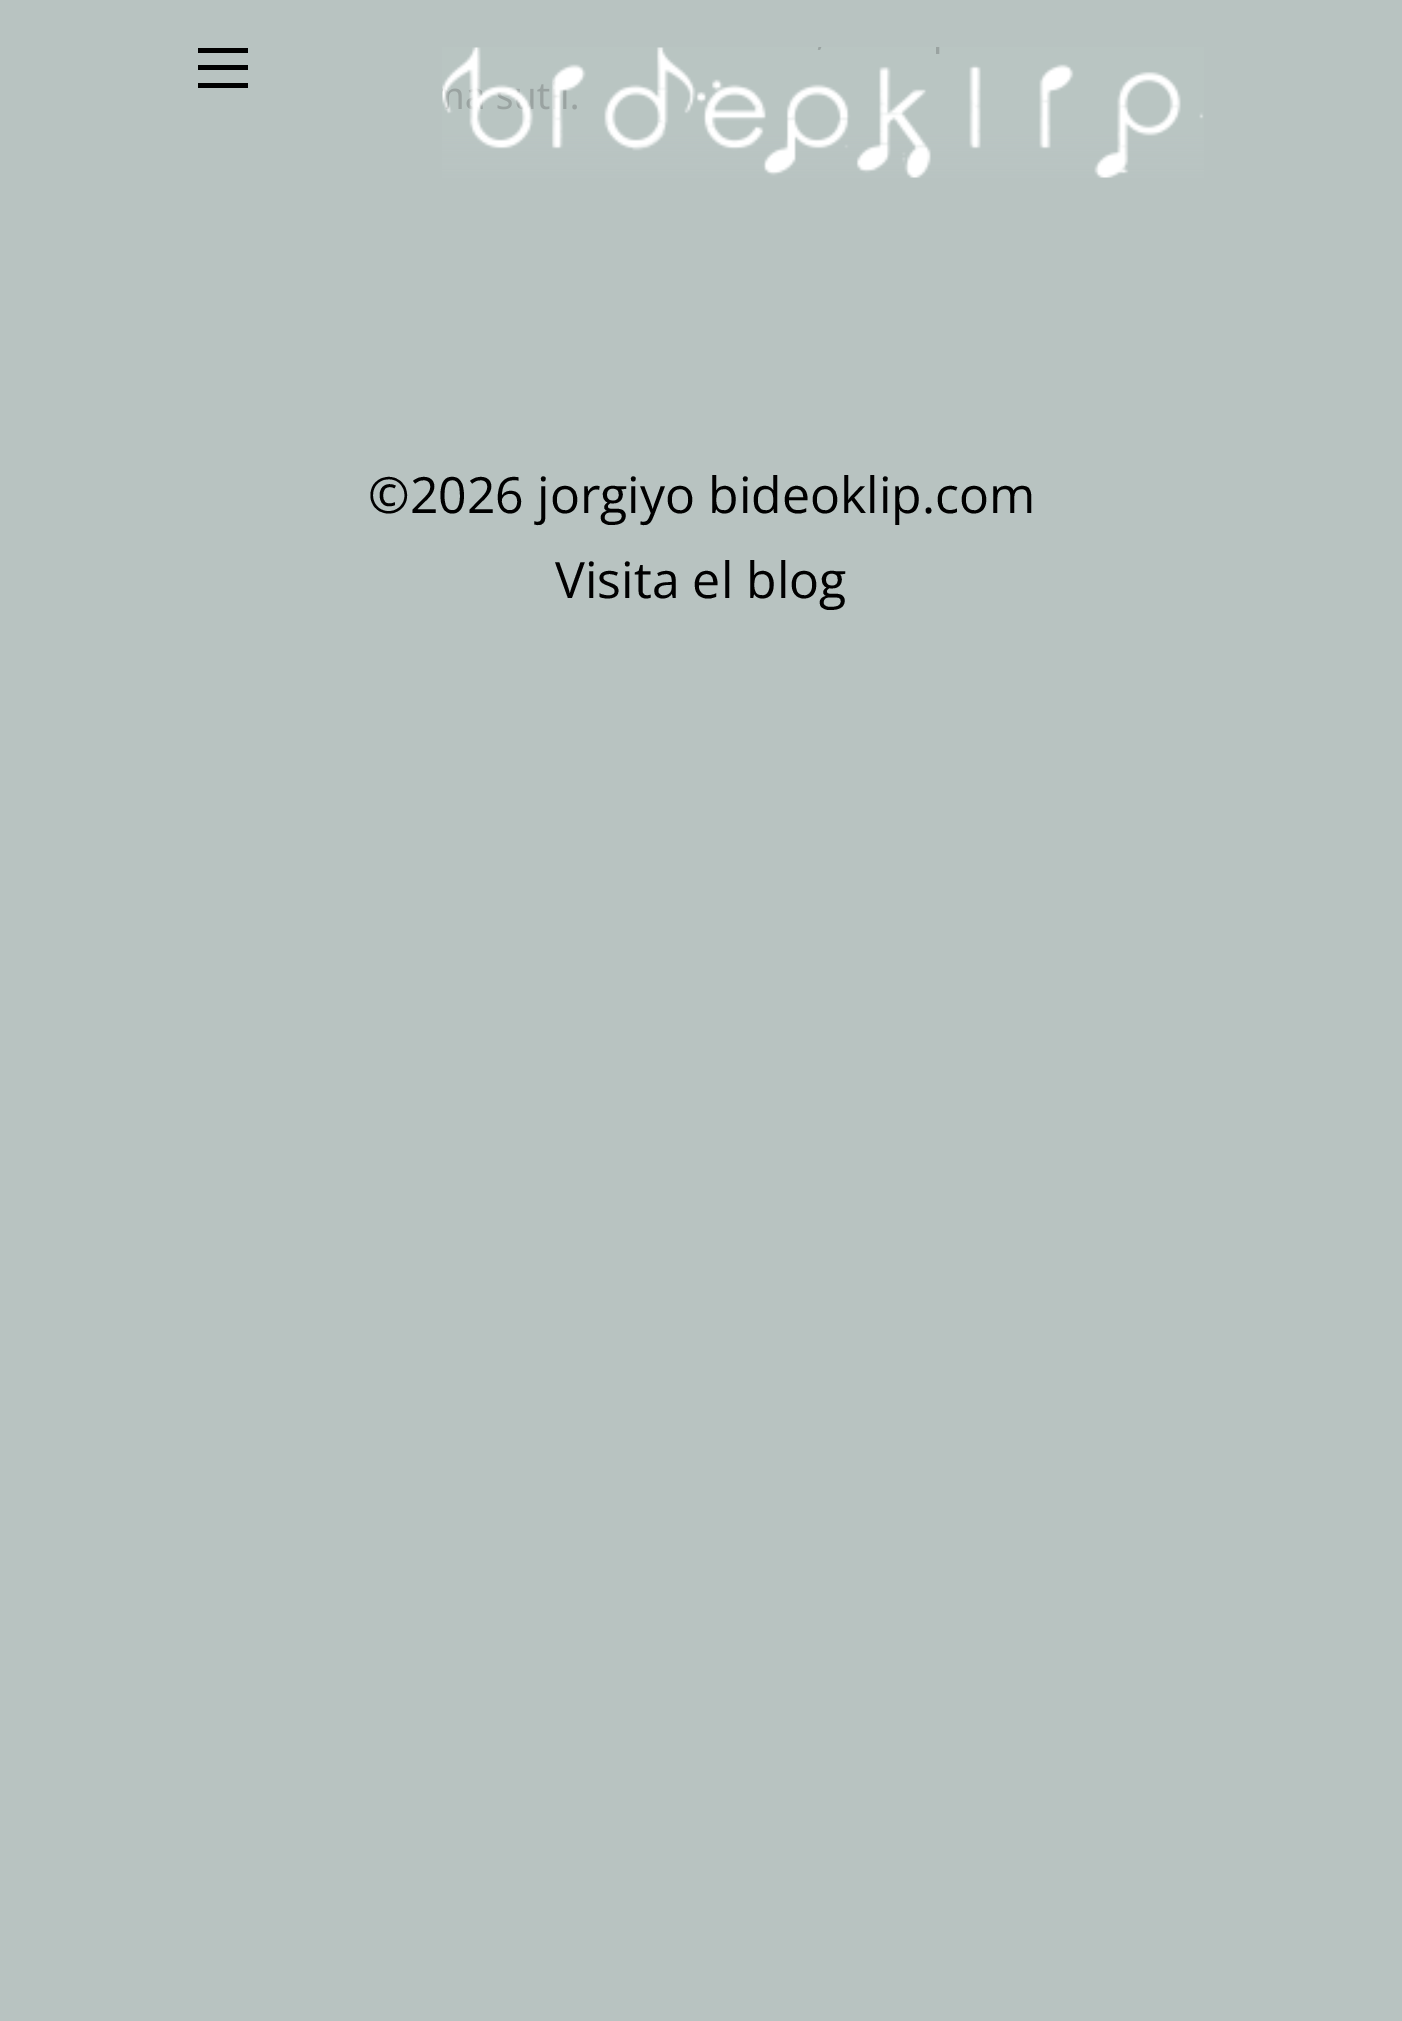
%!PS
<< /PageSize [1402 2021] >> setpagedevice
/co { dup -16 bitshift 255 div exch dup -8 bitshift 255 and 255 div exch 255 and 255 div setrgbcolor } def
/fn { [ exch dup neg 0 0 3 -1 roll 0 0 ] selectfont } def
/tx { co fn moveto show } def
/bx { co rectfill } def
/im { 5 dict begin { /h /w /y /x /name } { exch def } forall
  gsave x y translate w h scale
  w h 8 [w 0 0 h 0 0] name (r) file false 3 colorimage grestore end } def
0 2021 translate 1 -1 scale
4 setmiterlimit
0 0 1402 2021 16#B8C3C1 bx
198 48 50 5 16#000000 bx
198 65 50 5 16#000000 bx
198 83 50 5 16#000000 bx
(media/1.raw) 442 47 762 131 im
(©2026 jorgiyo bideoklip.com) 368 513 /OpenSans-Regular 50 16#000000 tx
(Visita el blog) 555 598 /OpenSans-Regular 50 16#000000 tx
showpage
